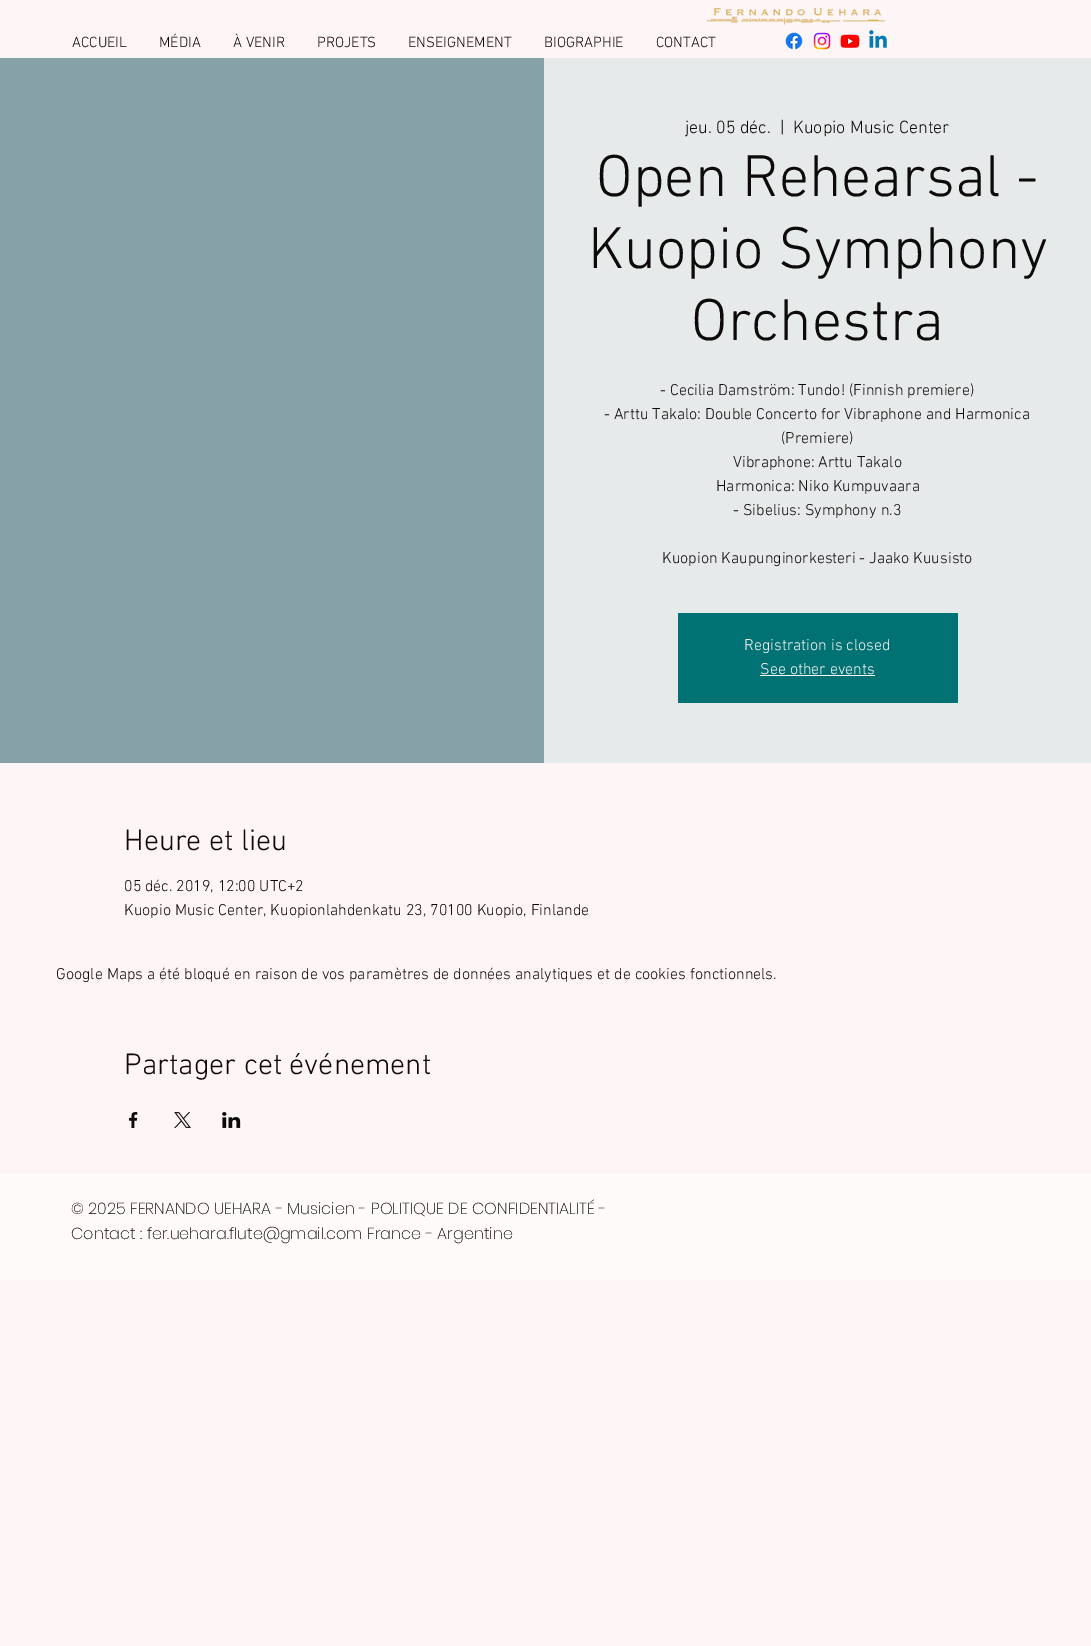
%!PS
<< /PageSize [1091 1646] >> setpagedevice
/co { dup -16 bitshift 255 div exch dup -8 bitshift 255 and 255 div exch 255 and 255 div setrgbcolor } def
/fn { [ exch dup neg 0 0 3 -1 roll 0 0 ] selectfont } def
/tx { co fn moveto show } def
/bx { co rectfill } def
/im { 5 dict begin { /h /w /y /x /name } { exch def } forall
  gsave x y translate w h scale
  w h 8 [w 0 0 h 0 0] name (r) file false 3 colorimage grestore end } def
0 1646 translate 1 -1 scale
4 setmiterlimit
0 0 1091 1646 16#FEF6F6 bx
(media/1.raw) 706 8 179 17 im
(media/2.raw) 785 32 18 18 im
(media/3.raw) 813 32 18 18 im
(media/4.raw) 840 34 20 14 im
(media/5.raw) 869 30 18 18 im
0 58 544 705 16#87A2A6 bx
544 58 547 705 16#E6EAEA bx
678 613 280 90 16#007273 bx
760 675 115 1 16#FEF6F6 bx
(media/6.raw) 129 1112 9 16 im
(media/7.raw) 174 1112 17 16 im
(media/8.raw) 222 1112 19 16 im
0 1173 1091 107 16#FFFBFB bx
(ACCUEIL) 72 47 /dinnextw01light-Light 15 16#0D0A0A tx
(MÉDIA) 159 47 /dinnextw01light-Light 15 16#0D0A0A tx
(À VENIR) 233 47 /dinnextw01light-Light 15 16#0D0A0A tx
(PROJETS) 317 47 /dinnextw01light-Light 15 16#0D0A0A tx
(ENSEIGNEMENT) 408 47 /dinnextw01light-Light 15 16#0D0A0A tx
(BIOGRAPHIE) 544 47 /dinnextw01light-Light 15 16#0D0A0A tx
(CONTACT) 656 47 /dinnextw01light-Light 15 16#0D0A0A tx
(jeu. 05 déc.) 685 133 /dinnextw01light-Light 18 16#0D0A0A tx
(|) 780 133 /dinnextw01light-Light 18 16#0D0A0A tx
(Kuopio Music Center) 793 133 /dinnextw01light-Light 18 16#0D0A0A tx
(Open Rehearsal -) 596 196 /dinnextw01light-Light 60 16#0D0A0A tx
(Kuopio Symphony) 588 268 /dinnextw01light-Light 60 16#0D0A0A tx
(Orchestra) 691 340 /dinnextw01light-Light 60 16#0D0A0A tx
(- Cecilia Damström: Tundo! \(Finnish premiere\)) 660 395 /dinnextw01light-Light 16 16#0D0A0A tx
(- Arttu Takalo: Double Concerto for Vibraphone and Harmonica) 604 419 /dinnextw01light-Light 16 16#0D0A0A tx
(\(Premiere\)) 781 443 /dinnextw01light-Light 16 16#0D0A0A tx
(Vibraphone: Arttu Takalo) 733 467 /dinnextw01light-Light 16 16#0D0A0A tx
(Harmonica: Niko Kumpuvaara) 716 491 /dinnextw01light-Light 16 16#0D0A0A tx
(- Sibelius: Symphony n.3) 733 515 /dinnextw01light-Light 16 16#0D0A0A tx
(Kuopion Kaupunginorkesteri - Jaako Kuusisto) 662 563 /dinnextw01light-Light 16 16#0D0A0A tx
(Registration is closed) 744 650 /dinnextw01light-Light 16 16#FEF6F6 tx
(See other events) 760 674 /dinnextw01light-Light 16 16#FEF6F6 tx
(Heure et lieu) 124 850 /dinnextw01light-Light 30 16#0D0A0A tx
(05 déc. 2019, 12:00 UTC+2) 124 891 /dinnextw01light-Light 16 16#0D0A0A tx
(Kuopio Music Center, Kuopionlahdenkatu 23, 70100 Kuopio, Finlande) 124 915 /dinnextw01light-Light 16 16#0D0A0A tx
(Google Maps a été bloqué en raison de vos paramètres de données analytiques et de cookies fonctionnels.) 56 979 /dinnextw01light-Light 16 16#0D0A0A tx
(Partager cet événement) 124 1074 /dinnextw01light-Light 30 16#0D0A0A tx
(© 2025 FERNANDO UEHARA - Musicien - POLITIQUE DE CONFIDENTIALITÉ -) 71 1214 /Poppins-ExtraLight 16 16#0D0A0A tx
(Contact : fer.uehara.flute@gmail.com France - Argentine) 71 1239 /Poppins-ExtraLight 16 16#0D0A0A tx
showpage
